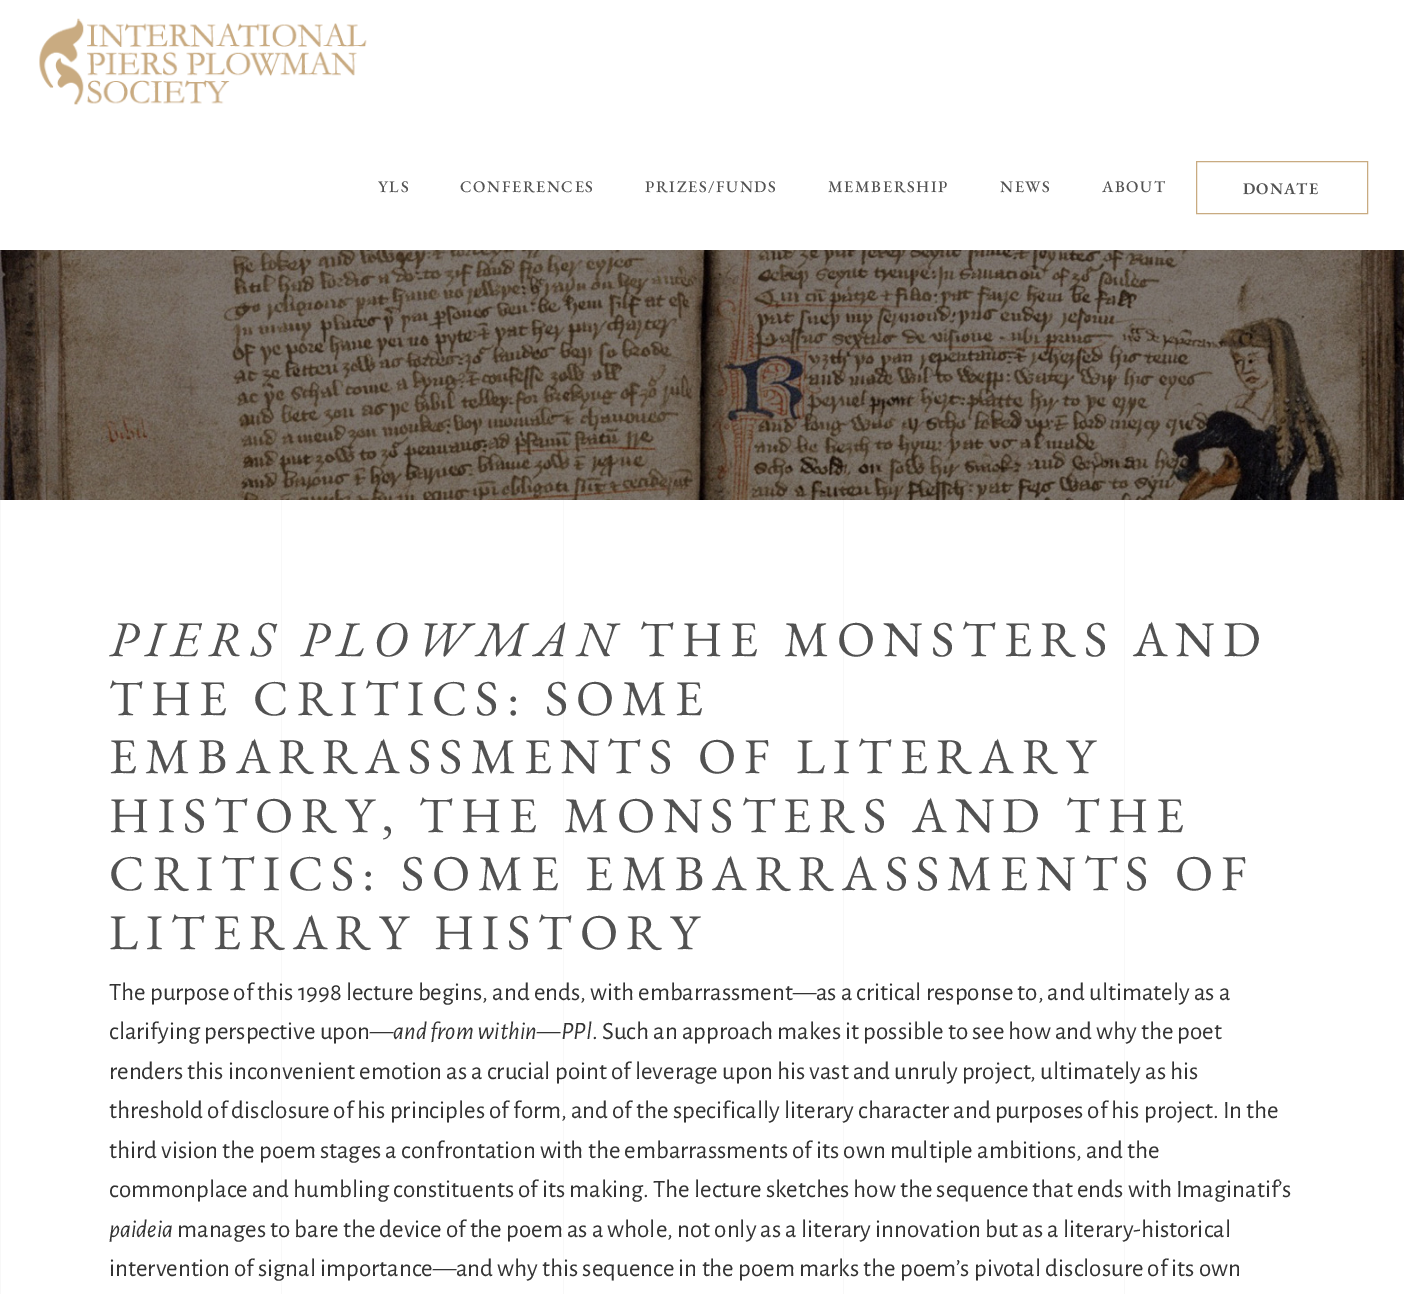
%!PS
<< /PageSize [1404 1294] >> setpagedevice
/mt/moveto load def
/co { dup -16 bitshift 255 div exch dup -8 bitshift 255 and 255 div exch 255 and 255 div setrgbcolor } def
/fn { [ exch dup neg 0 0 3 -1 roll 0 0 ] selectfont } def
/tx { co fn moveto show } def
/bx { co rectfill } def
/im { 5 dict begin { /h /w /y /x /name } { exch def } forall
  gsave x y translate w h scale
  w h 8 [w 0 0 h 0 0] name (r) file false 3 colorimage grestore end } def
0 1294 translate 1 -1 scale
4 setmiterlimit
0 0 1404 1294 16#FFFFFF bx
(media/1.raw) 39 18 328 87 im
16#C9AB81 co
1196.5 161.5 171 52 rectstroke
(media/2.raw) 0 250 1404 250 im
0 500 1 794 16#F8F8F8 bx
281 500 1 794 16#F8F8F8 bx
563 500 1 794 16#F8F8F8 bx
843 500 1 794 16#F8F8F8 bx
1124 500 1 794 16#F8F8F8 bx
/EBGaramond-Medium 16.25 fn
16#525252 co
378 192 mt 1.6 0 (YLS) ashow
460 192 mt 1.6 0 (CONFERENCES) ashow
645 192 mt 1.6 0 (PRIZES/FUNDS) ashow
828 192 mt 1.6 0 (MEMBERSHIP) ashow
1000 192 mt 1.6 0 (NEWS) ashow
1102 192 mt 1.6 0 (ABOUT) ashow
/EBGaramond-SemiBold 16.25 fn
1243 194 mt 1 0 (DONATE) ashow
/EBGaramond-Italic 50 fn
109 656 mt 8 0 (PIERS PLOWMAN) ashow
/EBGaramond-Regular 50 fn
640 656 mt 8 0 (THE MONSTERS AND) ashow
109 715 mt 8 0 (THE CRITICS: SOME) ashow
109 773 mt 8 0 (EMBARRASSMENTS OF LITERARY) ashow
109 832 mt 8 0 (HISTORY, THE MONSTERS AND THE) ashow
109 890 mt 8 0 (CRITICS: SOME EMBARRASSMENTS OF) ashow
109 949 mt 8 0 (LITERARY HISTORY) ashow
(The purpose of this 1998 lecture begins, and ends, with embarrassment—as a critical response to, and ultimately as a) 109 1000 /AlegreyaSans-Regular 25 16#333333 tx
(clarifying perspective upon—) 109 1039 /AlegreyaSans-Regular 25 16#333333 tx
(and from within) 393 1039 /AlegreyaSans-Italic 25 16#333333 tx
(—) 537 1039 /AlegreyaSans-Regular 25 16#333333 tx
(PPl) 561 1039 /AlegreyaSans-Italic 25 16#333333 tx
(. Such an approach makes it possible to see how and why the poet) 592 1039 /AlegreyaSans-Regular 25 16#333333 tx
(renders this inconvenient emotion as a crucial point of leverage upon his vast and unruly project, ultimately as his) 109 1079 /AlegreyaSans-Regular 25 16#333333 tx
(threshold of disclosure of his principles of form, and of the specifically literary character and purposes of his project. In the) 109 1118 /AlegreyaSans-Regular 25 16#333333 tx
(third vision the poem stages a confrontation with the embarrassments of its own multiple ambitions, and the) 109 1158 /AlegreyaSans-Regular 25 16#333333 tx
(commonplace and humbling constituents of its making. The lecture sketches how the sequence that ends with Imaginatif’s) 109 1197 /AlegreyaSans-Regular 25 16#333333 tx
(paideia) 109 1237 /AlegreyaSans-Italic 25 16#333333 tx
(manages to bare the device of the poem as a whole, not only as a literary innovation but as a literary-historical) 177 1237 /AlegreyaSans-Regular 25 16#333333 tx
(intervention of signal importance—and why this sequence in the poem marks the poem’s pivotal disclosure of its own) 109 1276 /AlegreyaSans-Regular 25 16#333333 tx
showpage
